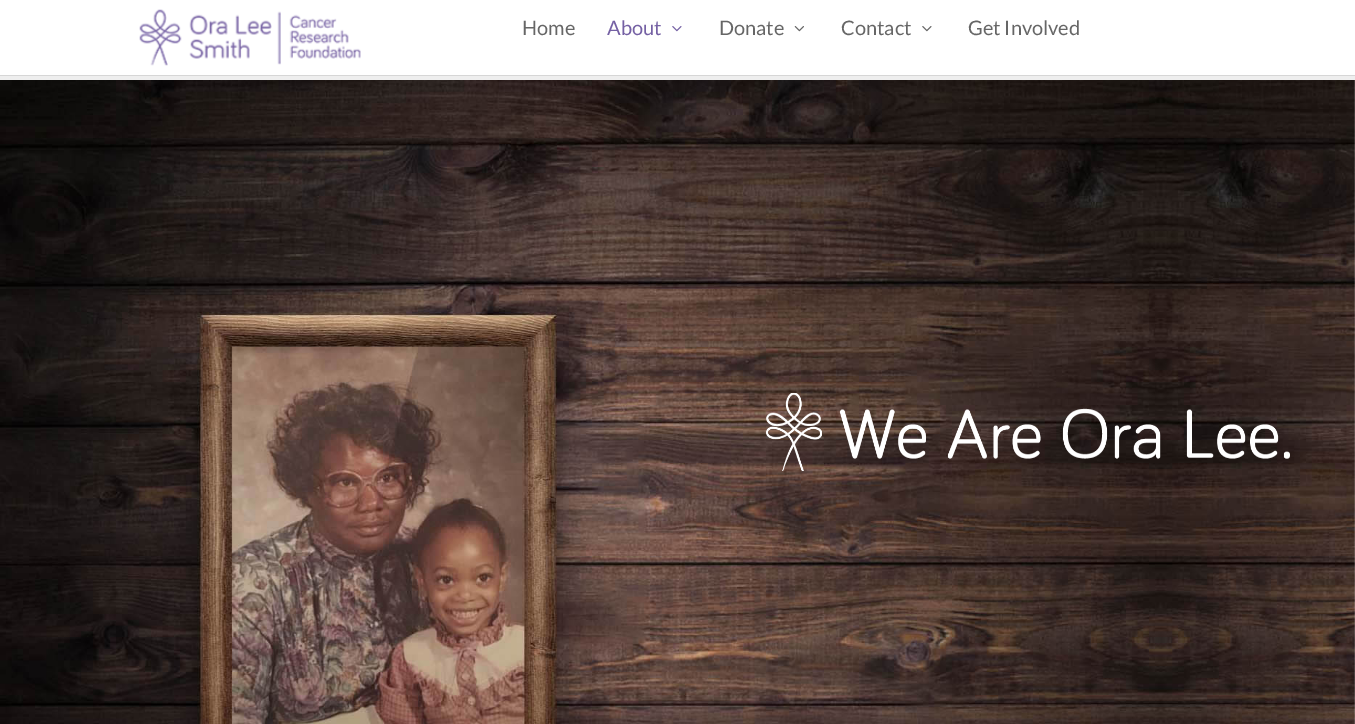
%!PS
<< /PageSize [1355 724] >> setpagedevice
/co { dup -16 bitshift 255 div exch dup -8 bitshift 255 and 255 div exch 255 and 255 div setrgbcolor } def
/fn { [ exch dup neg 0 0 3 -1 roll 0 0 ] selectfont } def
/tx { co fn moveto show } def
/bx { co rectfill } def
/im { 5 dict begin { /h /w /y /x /name } { exch def } forall
  gsave x y translate w h scale
  w h 8 [w 0 0 h 0 0] name (r) file false 3 colorimage grestore end } def
0 724 translate 1 -1 scale
4 setmiterlimit
0 0 1355 724 16#EEEEEE bx
0 75 1355 1 16#D6D6D6 bx
0 0 1355 75 16#FFFFFF bx
(media/1.raw) 139 9 222 57 im
(media/2.raw) 672 26 10 6 im
(media/3.raw) 794 26 10 6 im
(media/4.raw) 922 26 10 6 im
(media/5.raw) 0 80 1355 644 im
(media/6.raw) 766 393 524 78 im
(Home) 522 35 /Lato-Regular 20 16#666666 tx
(About) 607 35 /Lato-Regular 20 16#7561A4 tx
(Donate) 719 35 /Lato-Regular 20 16#666666 tx
(Contact) 841 35 /Lato-Regular 20 16#666666 tx
(Get Involved) 968 35 /Lato-Regular 20 16#666666 tx
showpage
